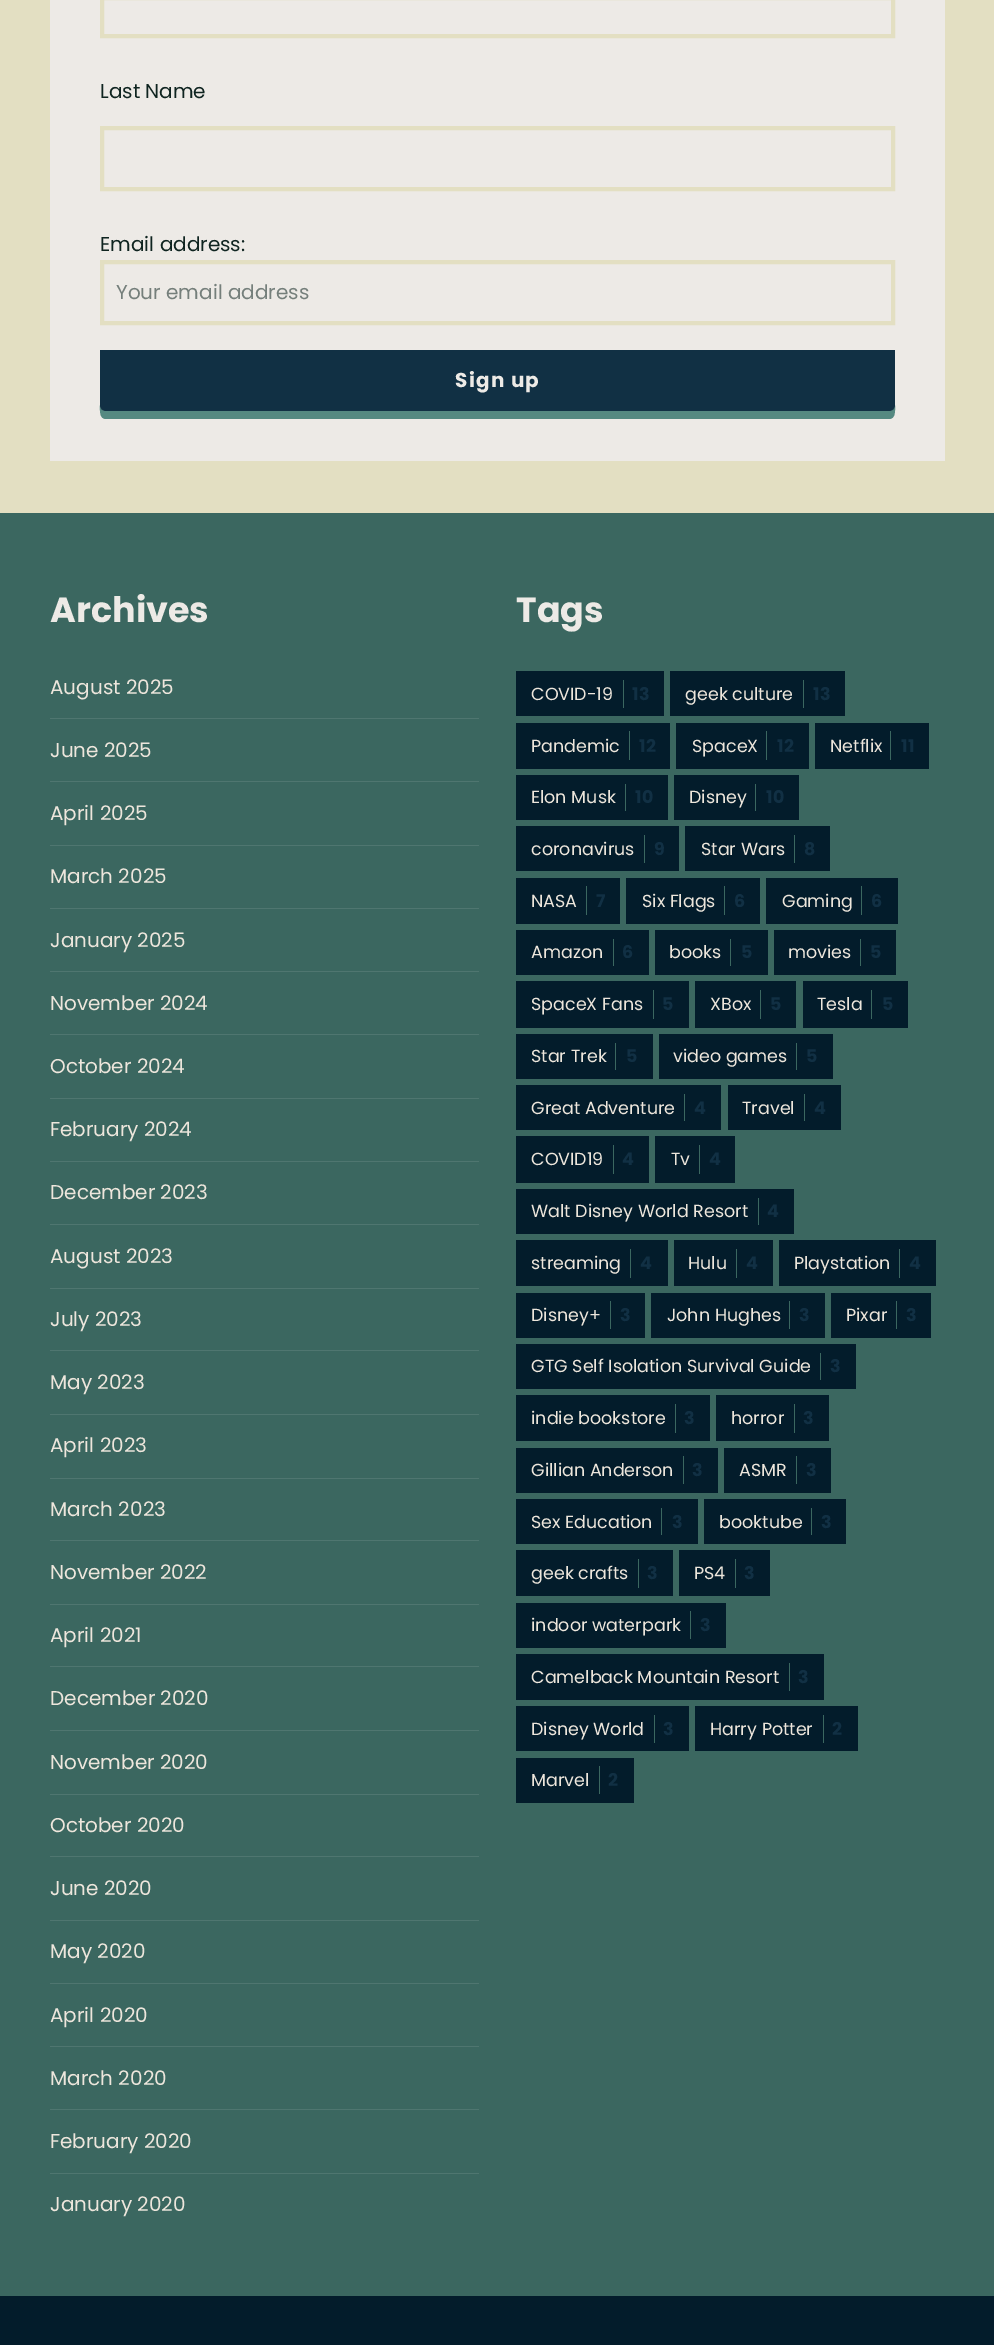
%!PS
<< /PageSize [994 2345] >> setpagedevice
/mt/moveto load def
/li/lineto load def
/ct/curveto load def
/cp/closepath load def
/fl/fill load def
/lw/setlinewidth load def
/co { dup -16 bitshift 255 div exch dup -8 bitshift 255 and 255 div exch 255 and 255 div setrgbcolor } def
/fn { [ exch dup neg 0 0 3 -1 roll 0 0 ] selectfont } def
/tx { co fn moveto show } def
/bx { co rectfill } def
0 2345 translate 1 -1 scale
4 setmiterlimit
0 0 994 2345 16#E3DFC2 bx
50 0 895 461 16#EDEAE6 bx
16#E3DFC2 co
4 lw
102 -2 791 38 rectstroke
102 128 791 61 rectstroke
102 262 791 61 rectstroke
16#558981 co
100 405 mt 100 410 99 419 106 419 ct 889 419 li 896 419 895 410 895 405 ct 895 408 892 411 889 411 ct 106 411 li 103 411 100 408 100 405 ct cp fl
16#113044 co
100 350 mt 895 350 li 895 405 li 895 408.5 892.5 411 889 411 ct 106 411 li 102.5 411 100 408.5 100 405 ct cp fl
0 513 994 1783 16#3B6760 bx
50 718 429 1 16#4F7670 bx
50 781 429 1 16#4F7670 bx
50 845 429 1 16#4F7670 bx
50 908 429 1 16#4F7670 bx
50 971 429 1 16#4F7670 bx
50 1034 429 1 16#4F7670 bx
50 1098 429 1 16#4F7670 bx
50 1161 429 1 16#4F7670 bx
50 1224 429 1 16#4F7670 bx
50 1288 429 1 16#4F7670 bx
50 1350 429 1 16#4F7670 bx
50 1414 429 1 16#4F7670 bx
50 1478 429 1 16#4F7670 bx
50 1540 429 1 16#4F7670 bx
50 1604 429 1 16#4F7670 bx
50 1666 429 1 16#4F7670 bx
50 1730 429 1 16#4F7670 bx
50 1794 429 1 16#4F7670 bx
50 1856 429 1 16#4F7670 bx
50 1920 429 1 16#4F7670 bx
50 1983 429 1 16#4F7670 bx
50 2046 429 1 16#4F7670 bx
50 2109 429 1 16#4F7670 bx
50 2173 429 1 16#4F7670 bx
516 671 148 45 16#031C2B bx
623 680 1 28 16#3B6760 bx
670 671 175 45 16#031C2B bx
803 680 1 28 16#3B6760 bx
516 723 154 46 16#031C2B bx
629 731 1 29 16#3B6760 bx
676 723 133 46 16#031C2B bx
766 731 1 29 16#3B6760 bx
815 723 114 46 16#031C2B bx
890 731 1 29 16#3B6760 bx
516 775 152 45 16#031C2B bx
625 784 1 27 16#3B6760 bx
674 775 125 45 16#031C2B bx
755 784 1 27 16#3B6760 bx
516 826 163 45 16#031C2B bx
644 835 1 28 16#3B6760 bx
685 826 145 45 16#031C2B bx
794 835 1 28 16#3B6760 bx
516 878 104 46 16#031C2B bx
586 886 1 29 16#3B6760 bx
626 878 134 46 16#031C2B bx
724 886 1 29 16#3B6760 bx
766 878 132 46 16#031C2B bx
861 886 1 29 16#3B6760 bx
516 930 133 45 16#031C2B bx
613 939 1 27 16#3B6760 bx
655 930 113 45 16#031C2B bx
730 939 1 27 16#3B6760 bx
774 930 122 45 16#031C2B bx
860 939 1 27 16#3B6760 bx
516 981 173 47 16#031C2B bx
653 990 1 29 16#3B6760 bx
695 981 101 47 16#031C2B bx
760 990 1 29 16#3B6760 bx
803 981 105 47 16#031C2B bx
871 990 1 29 16#3B6760 bx
516 1034 137 45 16#031C2B bx
615 1043 1 27 16#3B6760 bx
659 1034 174 45 16#031C2B bx
796 1043 1 27 16#3B6760 bx
516 1085 205 45 16#031C2B bx
684 1094 1 27 16#3B6760 bx
728 1085 113 45 16#031C2B bx
804 1094 1 27 16#3B6760 bx
516 1136 133 47 16#031C2B bx
613 1145 1 29 16#3B6760 bx
655 1136 80 47 16#031C2B bx
699 1145 1 29 16#3B6760 bx
516 1189 278 45 16#031C2B bx
758 1198 1 27 16#3B6760 bx
516 1240 152 46 16#031C2B bx
630 1249 1 29 16#3B6760 bx
674 1240 99 46 16#031C2B bx
736 1249 1 29 16#3B6760 bx
779 1240 157 46 16#031C2B bx
899 1249 1 29 16#3B6760 bx
516 1293 129 45 16#031C2B bx
610 1301 1 28 16#3B6760 bx
651 1293 174 45 16#031C2B bx
789 1301 1 28 16#3B6760 bx
831 1293 100 45 16#031C2B bx
896 1301 1 28 16#3B6760 bx
516 1344 340 45 16#031C2B bx
820 1353 1 27 16#3B6760 bx
516 1395 194 46 16#031C2B bx
675 1404 1 29 16#3B6760 bx
716 1395 113 46 16#031C2B bx
794 1404 1 29 16#3B6760 bx
516 1448 202 45 16#031C2B bx
683 1456 1 28 16#3B6760 bx
724 1448 107 45 16#031C2B bx
796 1456 1 28 16#3B6760 bx
516 1499 182 45 16#031C2B bx
661 1508 1 27 16#3B6760 bx
704 1499 142 45 16#031C2B bx
811 1508 1 27 16#3B6760 bx
516 1550 157 46 16#031C2B bx
638 1559 1 29 16#3B6760 bx
679 1550 91 46 16#031C2B bx
735 1559 1 29 16#3B6760 bx
516 1603 210 45 16#031C2B bx
690 1611 1 28 16#3B6760 bx
516 1654 308 46 16#031C2B bx
789 1663 1 28 16#3B6760 bx
516 1706 173 45 16#031C2B bx
654 1715 1 28 16#3B6760 bx
695 1706 163 45 16#031C2B bx
823 1715 1 28 16#3B6760 bx
516 1758 118 45 16#031C2B bx
599 1766 1 28 16#3B6760 bx
0 2296 994 49 16#031C2B bx
(Last Name) 100 98 /Poppins-Regular 20 16#0F2420 tx
(Email address:) 100 251 /Poppins-Regular 20 16#0F2420 tx
(Your email address) 116 299 /Poppins-Regular 20 16#757F7B tx
/Poppins-Bold 20 fn
16#EDEAE6 co
455 387 mt 1.25 0 (Sign up) ashow
(Archives) 50 622 /Poppins-Bold 35 16#EDEAE6 tx
(August 2025) 50 694 /Poppins-Regular 20 16#EDE6DC tx
(June 2025) 50 757 /Poppins-Regular 20 16#EDE6DC tx
(April 2025) 50 820 /Poppins-Regular 20 16#EDE6DC tx
(March 2025) 50 883 /Poppins-Regular 20 16#EDE6DC tx
(January 2025) 50 947 /Poppins-Regular 20 16#EDE6DC tx
(November 2024) 50 1010 /Poppins-Regular 20 16#EDE6DC tx
(October 2024) 50 1073 /Poppins-Regular 20 16#EDE6DC tx
(February 2024) 50 1136 /Poppins-Regular 20 16#EDE6DC tx
(December 2023) 50 1199 /Poppins-Regular 20 16#EDE6DC tx
(August 2023) 50 1263 /Poppins-Regular 20 16#EDE6DC tx
(July 2023) 50 1326 /Poppins-Regular 20 16#EDE6DC tx
(May 2023) 50 1389 /Poppins-Regular 20 16#EDE6DC tx
(April 2023) 50 1452 /Poppins-Regular 20 16#EDE6DC tx
(March 2023) 50 1516 /Poppins-Regular 20 16#EDE6DC tx
(November 2022) 50 1579 /Poppins-Regular 20 16#EDE6DC tx
(April 2021) 50 1642 /Poppins-Regular 20 16#EDE6DC tx
(December 2020) 50 1705 /Poppins-Regular 20 16#EDE6DC tx
(November 2020) 50 1769 /Poppins-Regular 20 16#EDE6DC tx
(October 2020) 50 1832 /Poppins-Regular 20 16#EDE6DC tx
(June 2020) 50 1895 /Poppins-Regular 20 16#EDE6DC tx
(May 2020) 50 1958 /Poppins-Regular 20 16#EDE6DC tx
(April 2020) 50 2022 /Poppins-Regular 20 16#EDE6DC tx
(March 2020) 50 2085 /Poppins-Regular 20 16#EDE6DC tx
(February 2020) 50 2148 /Poppins-Regular 20 16#EDE6DC tx
(January 2020) 50 2211 /Poppins-Regular 20 16#EDE6DC tx
(Tags) 516 622 /Poppins-Bold 35 16#EDEAE6 tx
(COVID-19) 531 700 /Poppins-Regular 17.5 16#EDE6DC tx
(13) 632 700 /Poppins-Bold 17.5 16#113044 tx
(geek culture) 685 700 /Poppins-Regular 17.5 16#EDE6DC tx
(13) 813 700 /Poppins-Bold 17.5 16#113044 tx
(Pandemic) 531 752 /Poppins-Regular 17.5 16#EDE6DC tx
(12) 639 752 /Poppins-Bold 17.5 16#113044 tx
(SpaceX) 692 752 /Poppins-Regular 17.5 16#EDE6DC tx
(12) 777 752 /Poppins-Bold 17.5 16#113044 tx
(Netflix) 830 752 /Poppins-Regular 17.5 16#EDE6DC tx
(11) 901 752 /Poppins-Bold 17.5 16#113044 tx
(Elon Musk) 531 803 /Poppins-Regular 17.5 16#EDE6DC tx
(10) 635 803 /Poppins-Bold 17.5 16#113044 tx
(Disney) 689 803 /Poppins-Regular 17.5 16#EDE6DC tx
(10) 766 803 /Poppins-Bold 17.5 16#113044 tx
(coronavirus) 531 855 /Poppins-Regular 17.5 16#EDE6DC tx
(9) 654 855 /Poppins-Bold 17.5 16#113044 tx
(Star Wars) 701 855 /Poppins-Regular 17.5 16#EDE6DC tx
(8) 804 855 /Poppins-Bold 17.5 16#113044 tx
(NASA) 531 907 /Poppins-Regular 17.5 16#EDE6DC tx
(7) 596 907 /Poppins-Bold 17.5 16#113044 tx
(Six Flags) 642 907 /Poppins-Regular 17.5 16#EDE6DC tx
(6) 734 907 /Poppins-Bold 17.5 16#113044 tx
(Gaming) 782 907 /Poppins-Regular 17.5 16#EDE6DC tx
(6) 871 907 /Poppins-Bold 17.5 16#113044 tx
(Amazon) 531 958 /Poppins-Regular 17.5 16#EDE6DC tx
(6) 622 958 /Poppins-Bold 17.5 16#113044 tx
(books) 669 958 /Poppins-Regular 17.5 16#EDE6DC tx
(5) 741 958 /Poppins-Bold 17.5 16#113044 tx
(movies) 788 958 /Poppins-Regular 17.5 16#EDE6DC tx
(5) 870 958 /Poppins-Bold 17.5 16#113044 tx
(SpaceX Fans) 531 1010 /Poppins-Regular 17.5 16#EDE6DC tx
(5) 662 1010 /Poppins-Bold 17.5 16#113044 tx
(XBox) 710 1010 /Poppins-Regular 17.5 16#EDE6DC tx
(5) 770 1010 /Poppins-Bold 17.5 16#113044 tx
(Tesla) 817 1010 /Poppins-Regular 17.5 16#EDE6DC tx
(5) 882 1010 /Poppins-Bold 17.5 16#113044 tx
(Star Trek) 531 1062 /Poppins-Regular 17.5 16#EDE6DC tx
(5) 626 1062 /Poppins-Bold 17.5 16#113044 tx
(video games) 673 1062 /Poppins-Regular 17.5 16#EDE6DC tx
(5) 806 1062 /Poppins-Bold 17.5 16#113044 tx
(Great Adventure) 531 1114 /Poppins-Regular 17.5 16#EDE6DC tx
(4) 694 1114 /Poppins-Bold 17.5 16#113044 tx
(Travel) 742 1114 /Poppins-Regular 17.5 16#EDE6DC tx
(4) 814 1114 /Poppins-Bold 17.5 16#113044 tx
(COVID19) 531 1165 /Poppins-Regular 17.5 16#EDE6DC tx
(4) 622 1165 /Poppins-Bold 17.5 16#113044 tx
(Tv) 671 1165 /Poppins-Regular 17.5 16#EDE6DC tx
(4) 709 1165 /Poppins-Bold 17.5 16#113044 tx
(Walt Disney World Resort) 531 1217 /Poppins-Regular 17.5 16#EDE6DC tx
(4) 767 1217 /Poppins-Bold 17.5 16#113044 tx
(streaming) 531 1269 /Poppins-Regular 17.5 16#EDE6DC tx
(4) 640 1269 /Poppins-Bold 17.5 16#113044 tx
(Hulu) 688 1269 /Poppins-Regular 17.5 16#EDE6DC tx
(4) 746 1269 /Poppins-Bold 17.5 16#113044 tx
(Playstation) 794 1269 /Poppins-Regular 17.5 16#EDE6DC tx
(4) 909 1269 /Poppins-Bold 17.5 16#113044 tx
(Disney+) 531 1321 /Poppins-Regular 17.5 16#EDE6DC tx
(3) 620 1321 /Poppins-Bold 17.5 16#113044 tx
(John Hughes) 667 1321 /Poppins-Regular 17.5 16#EDE6DC tx
(3) 799 1321 /Poppins-Bold 17.5 16#113044 tx
(Pixar) 846 1321 /Poppins-Regular 17.5 16#EDE6DC tx
(3) 906 1321 /Poppins-Bold 17.5 16#113044 tx
(GTG Self Isolation Survival Guide) 531 1372 /Poppins-Regular 17.5 16#EDE6DC tx
(3) 830 1372 /Poppins-Bold 17.5 16#113044 tx
(indie bookstore) 531 1424 /Poppins-Regular 17.5 16#EDE6DC tx
(3) 684 1424 /Poppins-Bold 17.5 16#113044 tx
(horror) 731 1424 /Poppins-Regular 17.5 16#EDE6DC tx
(3) 803 1424 /Poppins-Bold 17.5 16#113044 tx
(Gillian Anderson) 531 1476 /Poppins-Regular 17.5 16#EDE6DC tx
(3) 692 1476 /Poppins-Bold 17.5 16#113044 tx
(ASMR) 739 1476 /Poppins-Regular 17.5 16#EDE6DC tx
(3) 806 1476 /Poppins-Bold 17.5 16#113044 tx
(Sex Education) 531 1528 /Poppins-Regular 17.5 16#EDE6DC tx
(3) 672 1528 /Poppins-Bold 17.5 16#113044 tx
(booktube) 719 1528 /Poppins-Regular 17.5 16#EDE6DC tx
(3) 821 1528 /Poppins-Bold 17.5 16#113044 tx
(geek crafts) 531 1579 /Poppins-Regular 17.5 16#EDE6DC tx
(3) 647 1579 /Poppins-Bold 17.5 16#113044 tx
(PS4) 694 1579 /Poppins-Regular 17.5 16#EDE6DC tx
(3) 744 1579 /Poppins-Bold 17.5 16#113044 tx
(indoor waterpark) 531 1631 /Poppins-Regular 17.5 16#EDE6DC tx
(3) 700 1631 /Poppins-Bold 17.5 16#113044 tx
(Camelback Mountain Resort) 531 1683 /Poppins-Regular 17.5 16#EDE6DC tx
(3) 798 1683 /Poppins-Bold 17.5 16#113044 tx
(Disney World) 531 1735 /Poppins-Regular 17.5 16#EDE6DC tx
(3) 663 1735 /Poppins-Bold 17.5 16#113044 tx
(Harry Potter) 710 1735 /Poppins-Regular 17.5 16#EDE6DC tx
(2) 832 1735 /Poppins-Bold 17.5 16#113044 tx
(Marvel) 531 1786 /Poppins-Regular 17.5 16#EDE6DC tx
(2) 608 1786 /Poppins-Bold 17.5 16#113044 tx
showpage
